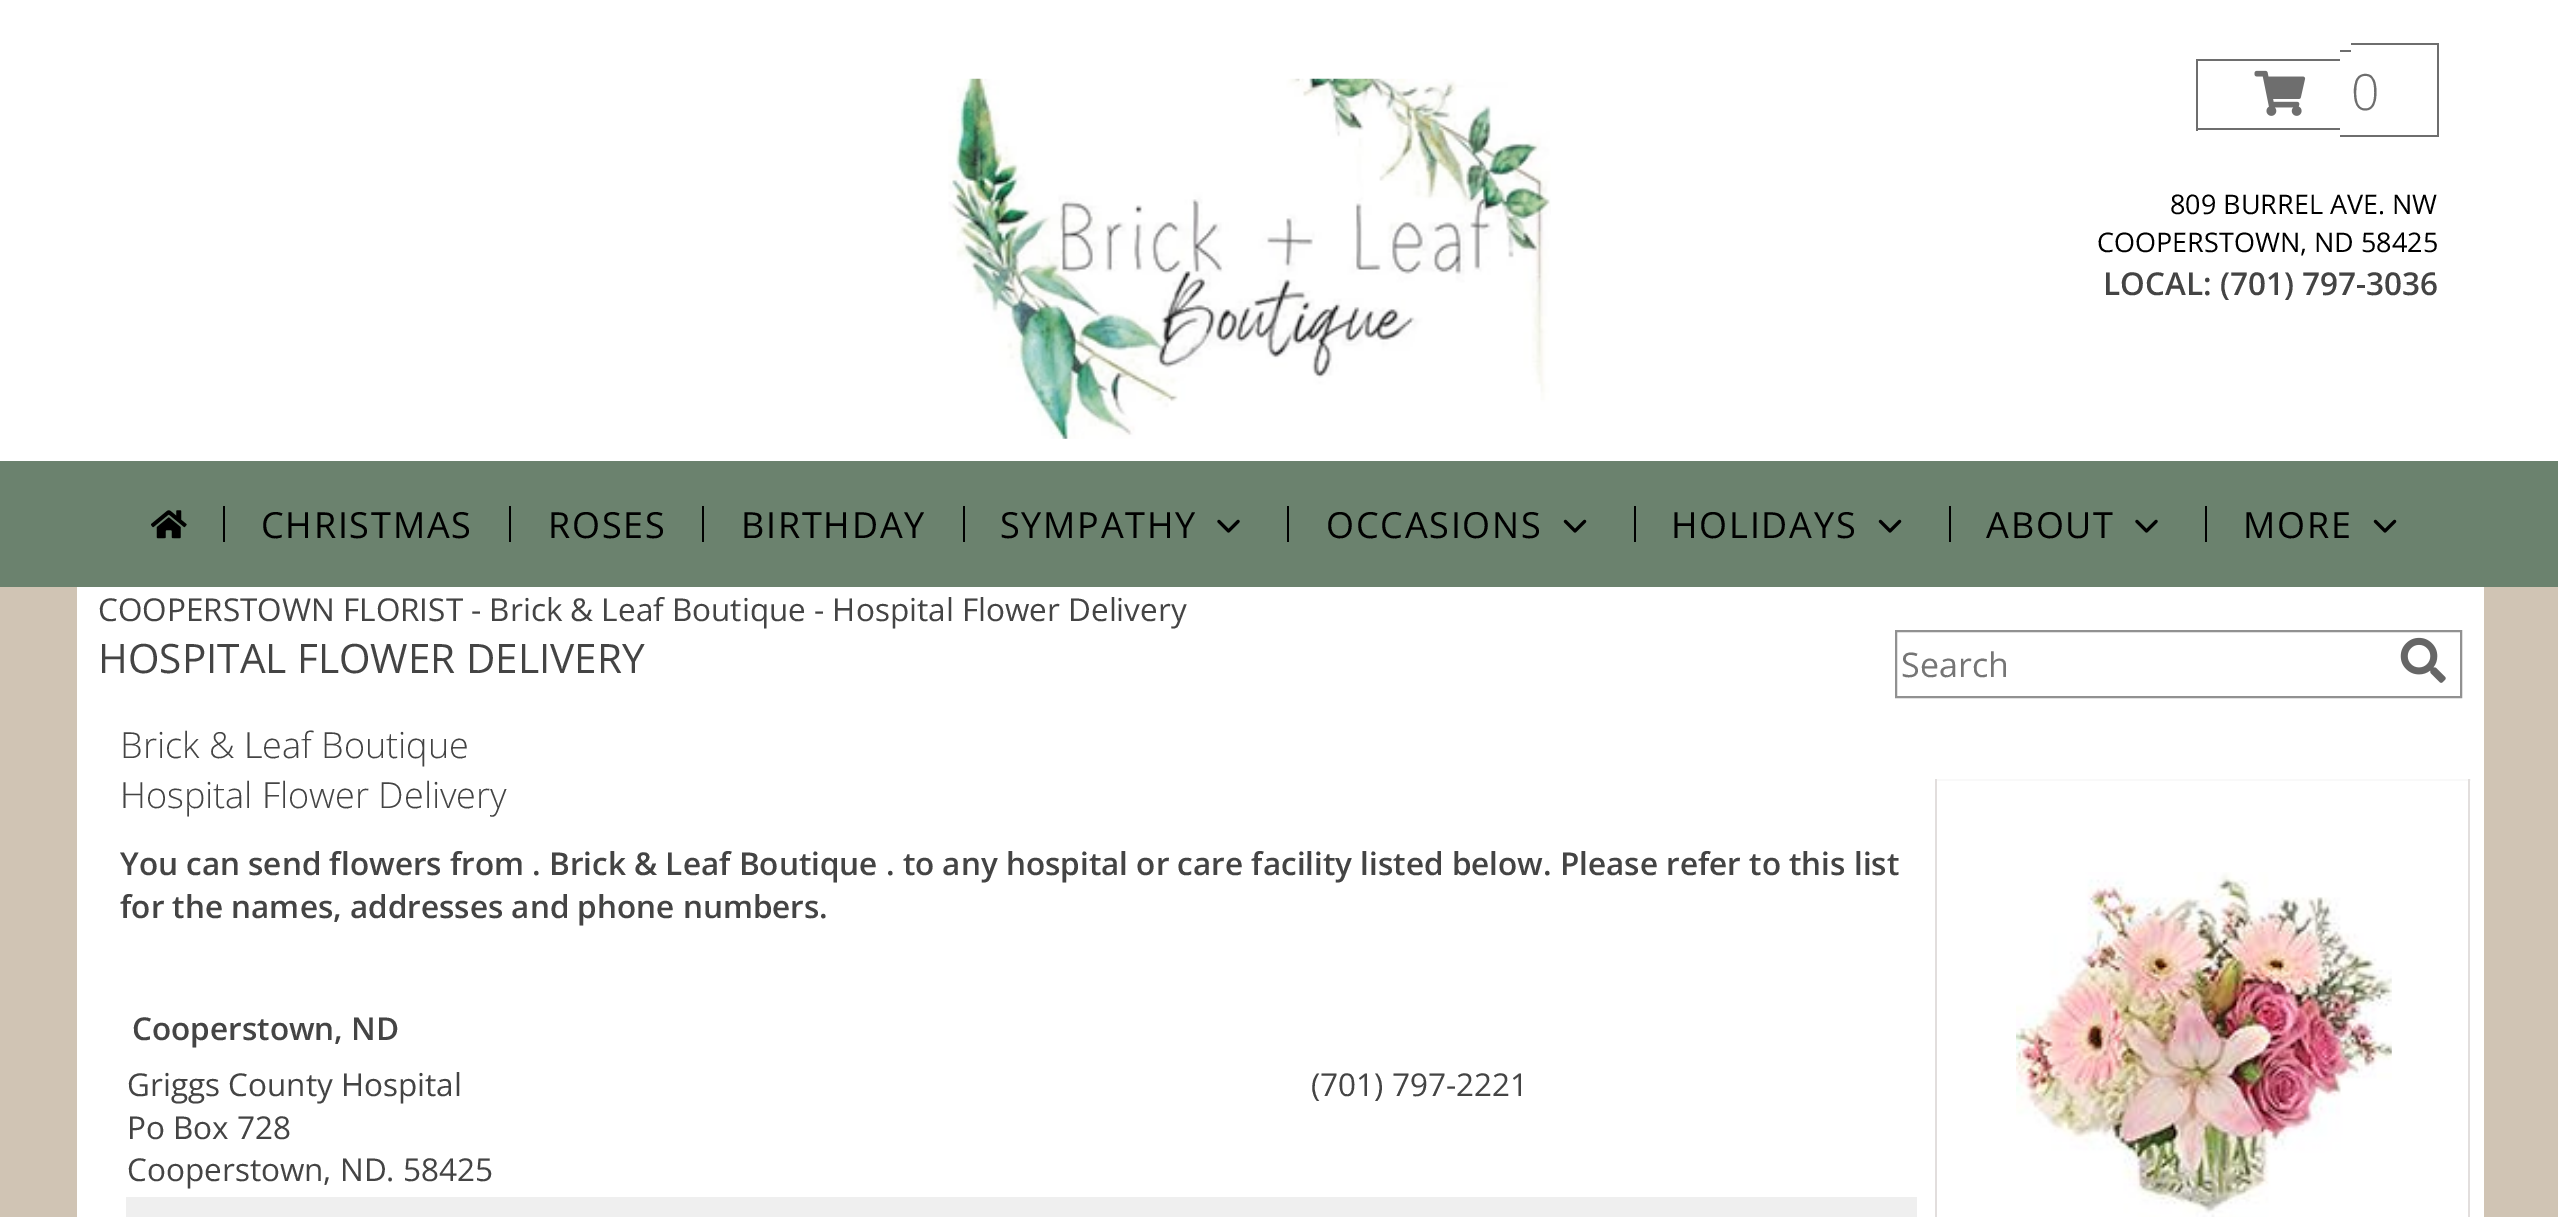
%!PS
<< /PageSize [2558 1217] >> setpagedevice
/mt/moveto load def
/lw/setlinewidth load def
/co { dup -16 bitshift 255 div exch dup -8 bitshift 255 and 255 div exch 255 and 255 div setrgbcolor } def
/fn { [ exch dup neg 0 0 3 -1 roll 0 0 ] selectfont } def
/tx { co fn moveto show } def
/bx { co rectfill } def
/im { 5 dict begin { /h /w /y /x /name } { exch def } forall
  gsave x y translate w h scale
  w h 8 [w 0 0 h 0 0] name (r) file false 3 colorimage grestore end } def
0 1217 translate 1 -1 scale
4 setmiterlimit
0 0 2558 1217 16#D0C4B4 bx
77 587 2407 630 16#FFFFFF bx
0 0 2558 461 16#FFFFFF bx
(media/1.raw) 948 78 603 361 im
2196 59 144 2 16#6E6E6E bx
2196 128 144 2 16#6E6E6E bx
2196 59 2 72 16#6E6E6E bx
2340 50 11 2 16#6E6E6E bx
2340 135 11 2 16#6E6E6E bx
2351 43 88 2 16#6E6E6E bx
2437 43 2 94 16#6E6E6E bx
2351 135 88 2 16#6E6E6E bx
(media/2.raw) 2254 70 52 46 im
0 461 2558 126 16#6B826E bx
(media/3.raw) 151 510 36 29 im
223 506 2 36 16#000000 bx
509 506 2 36 16#000000 bx
702 506 2 36 16#000000 bx
963 506 2 36 16#000000 bx
(media/4.raw) 1217 519 23 14 im
1287 506 2 36 16#000000 bx
(media/5.raw) 1563 519 24 14 im
1634 506 2 36 16#000000 bx
(media/5.raw) 1878 519 24 14 im
1949 506 2 36 16#000000 bx
(media/4.raw) 2135 519 23 14 im
2205 506 2 36 16#000000 bx
(media/5.raw) 2373 519 24 14 im
16#919191 co
2 lw
1896 631 565 66 rectstroke
(media/6.raw) 2400 637 46 46 im
126 1197 1791 20 16#EFEFEF bx
1935 779 536 2 16#F9F9F9 bx
2468 779 2 438 16#E2DEDD bx
1935 779 2 438 16#E2DEDD bx
(media/7.raw) 2016 872 376 345 im
(0) 2351 110 /OpenSans-Light 50 16#6E6E6E tx
(809 BURREL AVE. NW) 2170 214 /OpenSans-Regular 27 16#000000 tx
(COOPERSTOWN, ND 58425) 2097 252 /OpenSans-Regular 27 16#000000 tx
(LOCAL: \(701\) 797-3036) 2103 295 /OpenSans-SemiBold 31.5 16#444444 tx
/OpenSans-Regular 36 fn
16#000000 co
261 538 mt 1.75 0 (CHRISTMAS) ashow
548 538 mt 1.75 0 (ROSES) ashow
741 538 mt 1.75 0 (BIRTHDAY) ashow
1000 538 mt 1.75 0 (SYMPATHY) ashow
1326 538 mt 1.75 0 (OCCASIONS) ashow
1671 538 mt 1.75 0 (HOLIDAYS) ashow
1986 538 mt 1.75 0 (ABOUT) ashow
2243 538 mt 1.75 0 (MORE) ashow
(COOPERSTOWN FLORIST - Brick & Leaf Boutique - Hospital Flower Delivery) 98 621 /OpenSans-Regular 31.5 16#444444 tx
(HOSPITAL FLOWER DELIVERY) 98 673 /OpenSans-Regular 40.5 16#444444 tx
(Search) 1901 677 /OpenSans-Regular 34 16#757575 tx
(Brick & Leaf Boutique) 120 758 /OpenSans-Light 36 16#444444 tx
(Hospital Flower Delivery) 120 808 /OpenSans-Light 36 16#444444 tx
(You can send flowers from . Brick & Leaf Boutique . to any hospital or care facility listed below. Please refer to this list) 120 875 /OpenSans-SemiBold 31.5 16#444444 tx
(for the names, addresses and phone numbers.) 120 918 /OpenSans-SemiBold 31.5 16#444444 tx
(Cooperstown, ND) 132 1040 /OpenSans-SemiBold 31.5 16#444444 tx
(Griggs County Hospital) 127 1096 /OpenSans-Regular 31.5 16#444444 tx
(Po Box 728) 127 1139 /OpenSans-Regular 31.5 16#444444 tx
(Cooperstown, ND. 58425) 127 1181 /OpenSans-Regular 31.5 16#444444 tx
(\(701\) 797-2221) 1311 1096 /OpenSans-Regular 31.5 16#444444 tx
showpage
